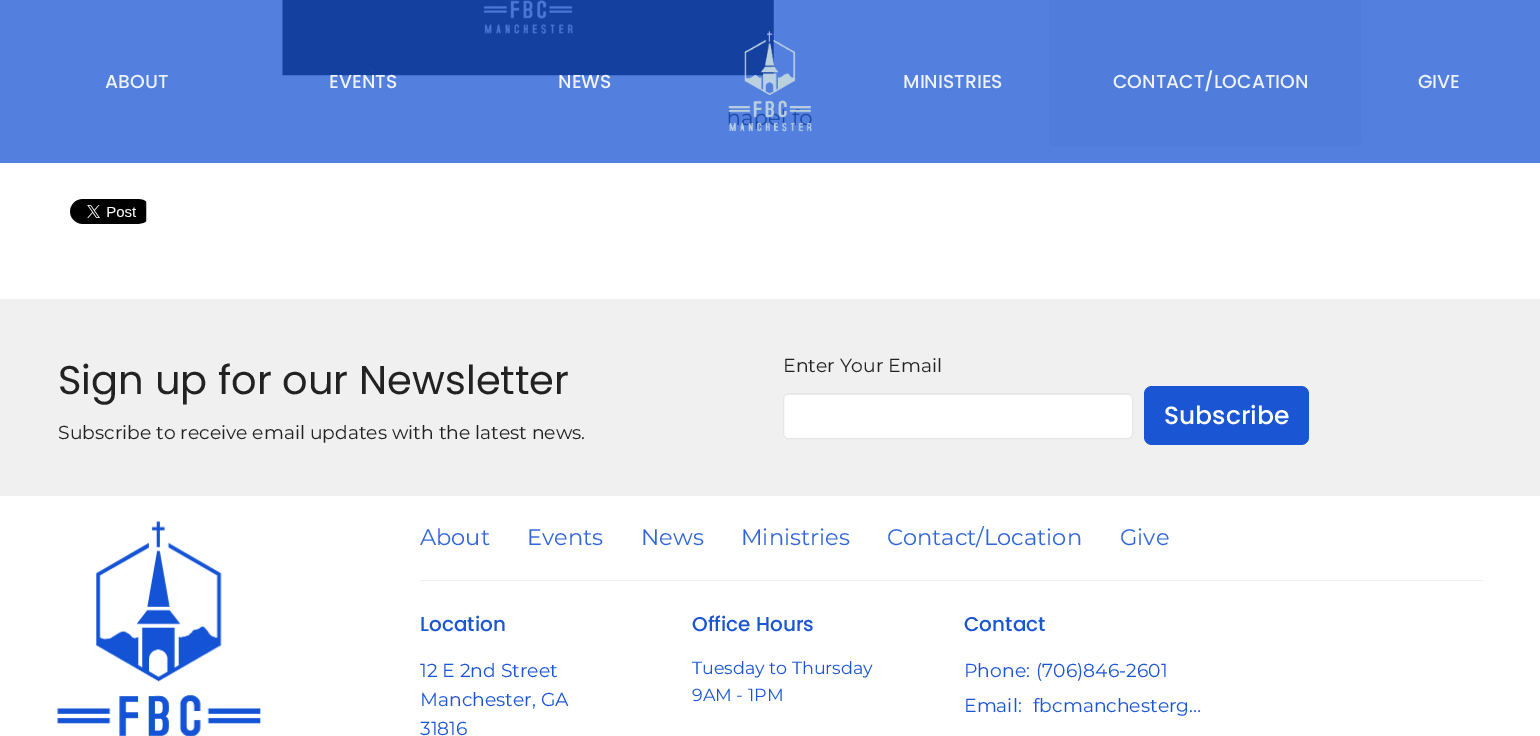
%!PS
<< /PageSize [1540 736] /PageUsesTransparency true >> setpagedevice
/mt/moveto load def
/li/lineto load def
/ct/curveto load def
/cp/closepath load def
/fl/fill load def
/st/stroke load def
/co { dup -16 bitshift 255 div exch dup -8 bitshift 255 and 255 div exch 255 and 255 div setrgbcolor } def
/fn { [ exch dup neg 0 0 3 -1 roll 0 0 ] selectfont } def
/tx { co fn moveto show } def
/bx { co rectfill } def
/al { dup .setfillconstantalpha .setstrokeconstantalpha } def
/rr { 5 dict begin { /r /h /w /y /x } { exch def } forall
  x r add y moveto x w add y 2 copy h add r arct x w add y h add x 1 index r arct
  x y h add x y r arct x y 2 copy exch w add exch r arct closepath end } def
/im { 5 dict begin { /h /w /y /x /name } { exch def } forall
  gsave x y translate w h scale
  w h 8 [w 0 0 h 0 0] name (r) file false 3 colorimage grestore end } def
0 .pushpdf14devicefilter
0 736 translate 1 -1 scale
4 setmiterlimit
0 0 1540 736 16#FFFFFF bx
(media/1.raw) 282 0 492 76 im
(media/2.raw) 70 199 77 25 im
1049 0 312 90 16#F0F0F0 bx
1049 90 mt 1361 90 li 1361 141 li 1361 144 1359 146 1356 146 ct 1054 146 li 1051 146 1049 144 1049 141 ct cp fl
0.75 al
0 0 1540 163 16#1A55D4 bx
1 al
(media/3.raw) 728 30 84 102 im
0 299 1540 197 16#F0F0F0 bx
16#FFFFFF co
783 393 350 46 5 rr fl
16#ECECEC co
788 395 mt 1128 395 li 1130 395 1131 397 1131 399 ct 1131 398 li 1131 396 1129 394 1127 394 ct 788 394 li 786 394 784 396 784 398 ct 784 399 li 784 397 785 395 788 395 ct cp fl
16#E6E6E6 co
783.5 393.5 349 45 4.5 rr st
16#1A55D4 co
1144 386 165 59 8 rr fl
(media/4.raw) 57 521 204 215 im
420 580 1063 1 16#F0F0F0 bx
(ABOUT) 105 88 /Poppins-Medium 18.75 16#EEF2FC tx
(EVENTS) 329 88 /Poppins-Medium 18.75 16#EEF2FC tx
(NEWS) 558 88 /Poppins-Medium 18.75 16#EEF2FC tx
(MINISTRIES) 903 88 /Poppins-Medium 18.75 16#EEF2FC tx
(CONTACT/LOCATION) 1113 88 /Poppins-Medium 18.75 16#EEF2FC tx
(GIVE) 1418 88 /Poppins-Medium 18.75 16#EEF2FC tx
(Sign up for our Newsletter) 58 394 /Poppins-Regular 40 16#222222 tx
(Subscribe to receive email updates with the latest news.) 58 439 /Montserrat-Regular 18.75 16#222222 tx
(Enter Your Email) 783 372 /Montserrat-Regular 18.75 16#222222 tx
(Subscribe) 1164 424 /Poppins-Medium 25 16#FFFFFF tx
(About) 420 545 /Montserrat-Regular 22.5 16#3166D8 tx
(Events) 527 545 /Montserrat-Regular 22.5 16#3166D8 tx
(News) 641 545 /Montserrat-Regular 22.5 16#3166D8 tx
(Ministries) 741 545 /Montserrat-Regular 22.5 16#3166D8 tx
(Contact/Location) 887 545 /Montserrat-Regular 22.5 16#3166D8 tx
(Give) 1120 545 /Montserrat-Regular 22.5 16#3166D8 tx
(Location) 420 631 /Poppins-Medium 20 16#1A55D4 tx
(12 E 2nd Street) 420 677 /Montserrat-Regular 18.75 16#1A55D4 tx
(Manchester, GA) 420 706 /Montserrat-Regular 18.75 16#1A55D4 tx
(31816) 420 735 /Montserrat-Regular 18.75 16#1A55D4 tx
(Office Hours) 692 631 /Poppins-Medium 20 16#1A55D4 tx
(Tuesday to Thursday) 692 674 /Montserrat-Regular 17.5 16#1A55D4 tx
(9AM - 1PM) 692 701 /Montserrat-Regular 17.5 16#1A55D4 tx
(Contact) 964 631 /Poppins-Medium 20 16#1A55D4 tx
(Phone:) 964 677 /Montserrat-Regular 18.75 16#1A55D4 tx
(\(706\)846-2601) 1036 677 /Montserrat-Regular 18.75 16#1A55D4 tx
(Email:) 964 712 /Montserrat-Regular 18.75 16#1A55D4 tx
(fbcmanchesterg…) 1033 712 /Montserrat-Regular 18.75 16#1A55D4 tx
.poppdf14devicefilter showpage
